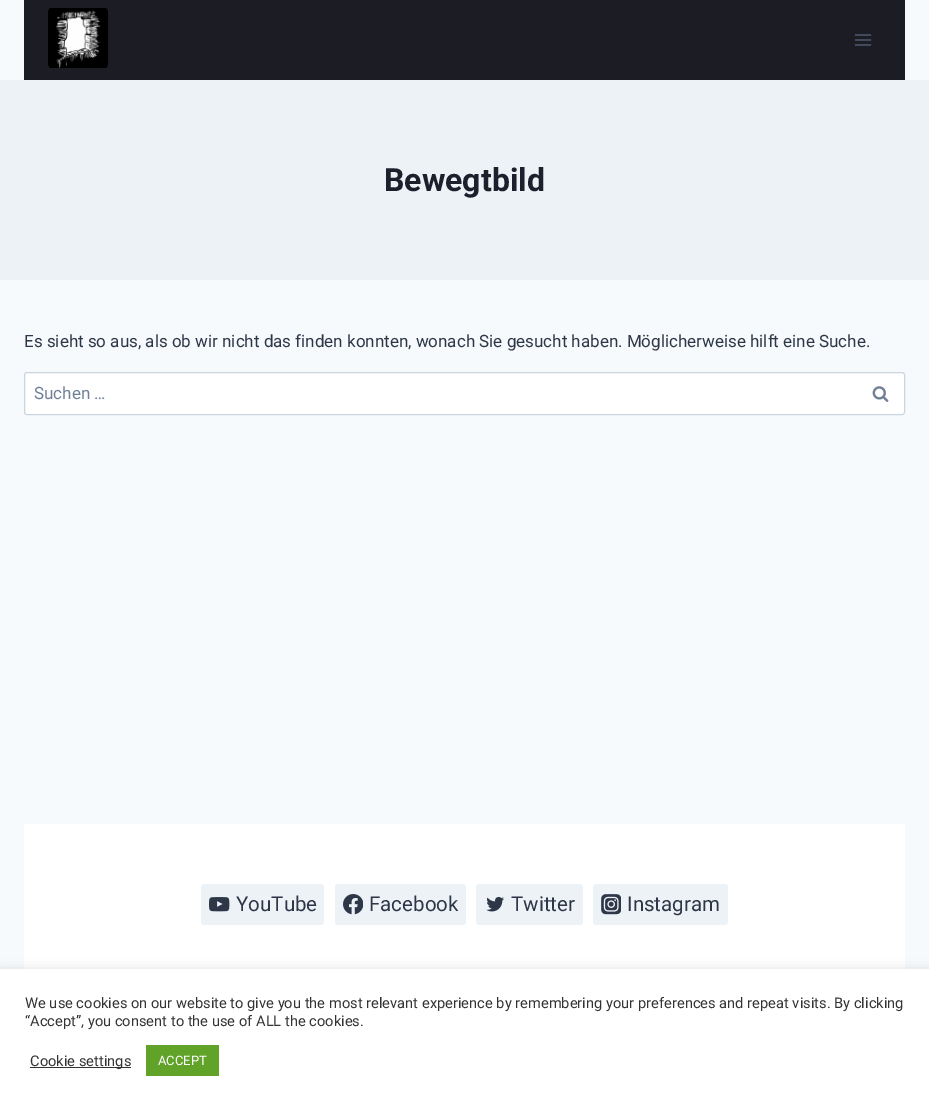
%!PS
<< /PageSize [929 1106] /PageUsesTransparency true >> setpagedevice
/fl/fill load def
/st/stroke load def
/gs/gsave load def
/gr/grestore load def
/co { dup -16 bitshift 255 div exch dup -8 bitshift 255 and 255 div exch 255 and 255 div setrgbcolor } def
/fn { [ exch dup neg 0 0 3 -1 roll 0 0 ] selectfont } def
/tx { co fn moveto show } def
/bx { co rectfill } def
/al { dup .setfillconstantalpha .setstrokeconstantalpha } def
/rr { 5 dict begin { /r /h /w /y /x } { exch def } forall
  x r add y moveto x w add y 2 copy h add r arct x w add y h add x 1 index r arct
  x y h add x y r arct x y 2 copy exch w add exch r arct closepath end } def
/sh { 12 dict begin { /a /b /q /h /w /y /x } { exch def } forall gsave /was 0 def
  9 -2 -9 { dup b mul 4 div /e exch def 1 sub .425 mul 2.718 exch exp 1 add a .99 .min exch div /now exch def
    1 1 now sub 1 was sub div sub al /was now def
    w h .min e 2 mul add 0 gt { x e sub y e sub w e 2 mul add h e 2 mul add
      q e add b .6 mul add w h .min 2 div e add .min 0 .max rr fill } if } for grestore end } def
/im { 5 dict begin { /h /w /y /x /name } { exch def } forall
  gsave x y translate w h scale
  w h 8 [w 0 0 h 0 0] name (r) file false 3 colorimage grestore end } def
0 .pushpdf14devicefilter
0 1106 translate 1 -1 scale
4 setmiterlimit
0 0 929 1106 16#F7FAFC bx
24 0 881 80 16#1C1C25 bx
(media/1.raw) 48 8 60 60 im
(media/2.raw) 854 34 18 12 im
0 80 929 200 16#EDF2F7 bx
16#FFFFFF co
24.5 372.5 880 42 2.5 rr gs fl gr
16#CBD5E0 co
st
(media/3.raw) 872 386 17 16 im
24 824 881 145 16#FFFFFF bx
16#EDF2F7 co
201 884 123 41 3 rr fl
(media/4.raw) 209 897 21 15 im
335 884 131 41 3 rr fl
(media/5.raw) 343 894 20 21 im
476 884 107 41 3 rr fl
(media/6.raw) 486 896 18 16 im
593 884 135 41 3 rr fl
(media/7.raw) 601 894 20 21 im
16#ACABAB co
0 968 929 137 0 5 .3 sh
0 969 929 137 16#FFFFFF bx
30 1067 101 1 16#333333 bx
146 1045 73 31 16#61A229 bx
(Bewegtbild) 384 191 /Roboto-Bold 32 16#1A202C tx
(Es sieht so aus, als ob wir nicht das finden konnten, wonach Sie gesucht haben. Möglicherweise hilft eine Suche.) 24 347 /Roboto-Regular 17 16#2D3748 tx
(Suchen …) 34 399 /Roboto-Regular 17 16#718096 tx
(YouTube) 236 911 /Roboto-Regular 20.5 16#2D3748 tx
(Facebook) 369 911 /Roboto-Regular 20.5 16#2D3748 tx
(Twitter) 511 911 /Roboto-Regular 20.5 16#2D3748 tx
(Instagram) 627 911 /Roboto-Regular 20.5 16#2D3748 tx
(We use cookies on our website to give you the most relevant experience by remembering your preferences and repeat visits. By clicking) 25 1008 /Roboto-Regular 14.67 16#333333 tx
(“Accept”, you consent to the use of ALL the cookies.) 25 1026 /Roboto-Regular 14.67 16#333333 tx
(Cookie settings) 30 1066 /Roboto-Regular 14.67 16#333333 tx
(ACCEPT) 158 1065 /Roboto-Regular 13 16#FFFFFF tx
.poppdf14devicefilter showpage
